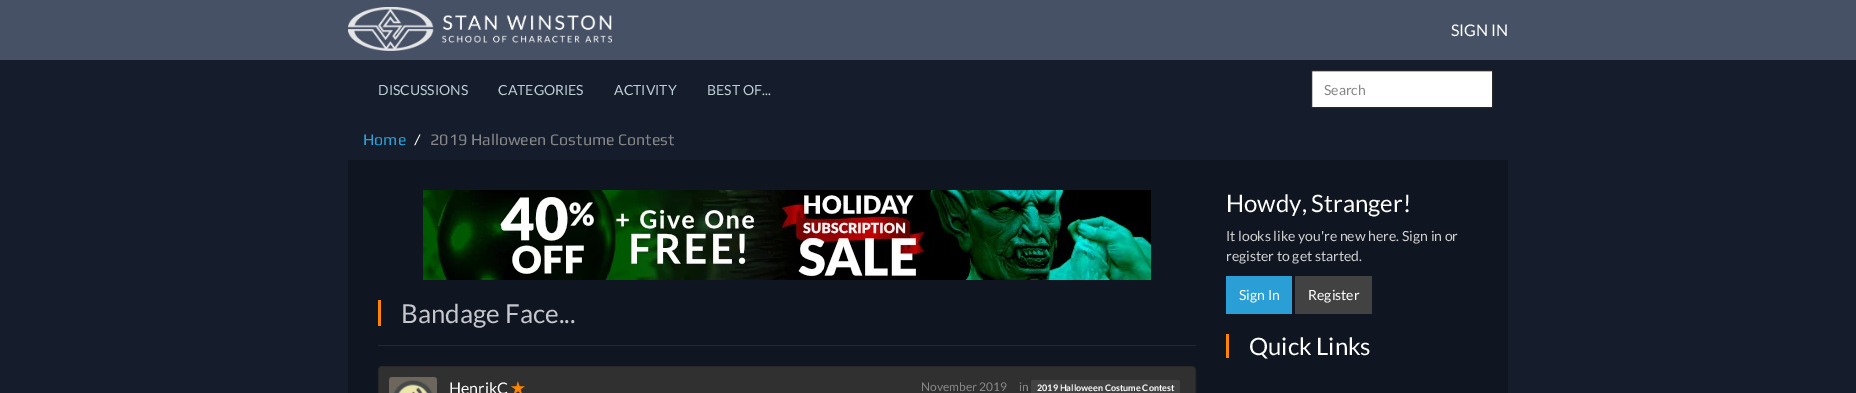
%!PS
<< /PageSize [1856 393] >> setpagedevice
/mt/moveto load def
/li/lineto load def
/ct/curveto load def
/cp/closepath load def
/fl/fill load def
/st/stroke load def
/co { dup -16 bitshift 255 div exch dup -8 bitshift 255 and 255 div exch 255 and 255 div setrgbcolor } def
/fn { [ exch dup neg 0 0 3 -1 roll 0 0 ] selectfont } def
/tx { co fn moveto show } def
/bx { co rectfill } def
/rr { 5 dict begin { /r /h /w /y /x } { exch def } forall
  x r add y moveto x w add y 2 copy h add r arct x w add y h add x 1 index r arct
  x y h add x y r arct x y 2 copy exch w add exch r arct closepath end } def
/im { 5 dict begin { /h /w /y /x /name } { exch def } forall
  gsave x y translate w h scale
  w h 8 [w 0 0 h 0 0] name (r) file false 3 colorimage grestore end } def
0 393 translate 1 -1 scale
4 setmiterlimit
0 0 1856 393 16#151C2B bx
0 0 1856 60 16#475166 bx
(media/1.raw) 348 7 264 44 im
1312 72 180 35 16#FFFFFF bx
1312 71 180 1 16#ECECEC bx
16#282828 co
1311.5 70.5 181 37 rectstroke
348 160 1160 233 16#0F1521 bx
(media/2.raw) 423 190 728 90 im
378 345 818 1 16#282828 bx
378 300 3 26 16#FF8400 bx
16#282828 co
378.5 366.5 817 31 3.5 rr st
16#303030 co
382 367 mt 1192 367 li 1193.5 367 1195 368.5 1195 370 ct 1195 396 li 379 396 li 379 370 li 379 368.5 380.5 367 382 367 ct cp fl
(media/3.raw) 389 377 48 16 im
16#424242 co
1031 380 149 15 2 rr fl
1226 276 66 38 16#2A9FD6 bx
1295 276 77 38 16#424242 bx
1226 334 3 24 16#FF8400 bx
(SIGN IN) 1451 36 /Lato-Regular 16 16#FFFFFF tx
(DISCUSSIONS) 378 95 /Lato-Regular 14 16#BCCDD5 tx
(CATEGORIES) 498 95 /Lato-Regular 14 16#BCCDD5 tx
(ACTIVITY) 614 95 /Lato-Regular 14 16#BCCDD5 tx
(BEST OF...) 707 95 /Lato-Regular 14 16#BCCDD5 tx
(Search) 1324 95 /Lato-Regular 14 16#888888 tx
(Home) 363 145 /Play-Regular 16 16#2A9FD6 tx
(/) 414 145 /Play-Regular 16 16#FFFFFF tx
(2019 Halloween Costume Contest) 430 145 /Play-Regular 16 16#888888 tx
(Bandage Face...) 401 323 /Lato-Regular 26 16#C6C7CD tx
(HenrikC) 449 394 /Lato-Regular 16 16#FFFFFF tx
(✭) 511 394 /DejaVuSans-Bold 16 16#FF8800 tx
(November 2019) 921 391 /Lato-Regular 12 16#888888 tx
(in) 1019 391 /Lato-Regular 12 16#888888 tx
(2019 Halloween Costume Contest) 1037 391 /Lato-Bold 9 16#FFFFFF tx
(Howdy, Stranger!) 1226 212 /Lato-Regular 24 16#FFFFFF tx
(It looks like you're new here. Sign in or) 1226 241 /Lato-Regular 14 16#D0D0D0 tx
(register to get started.) 1226 261 /Lato-Regular 14 16#D0D0D0 tx
(Sign In) 1239 300 /Lato-Regular 14 16#FFFFFF tx
(Register) 1308 300 /Lato-Regular 14 16#FFFFFF tx
(Quick Links) 1249 355 /Lato-Regular 24 16#FFFFFF tx
showpage
